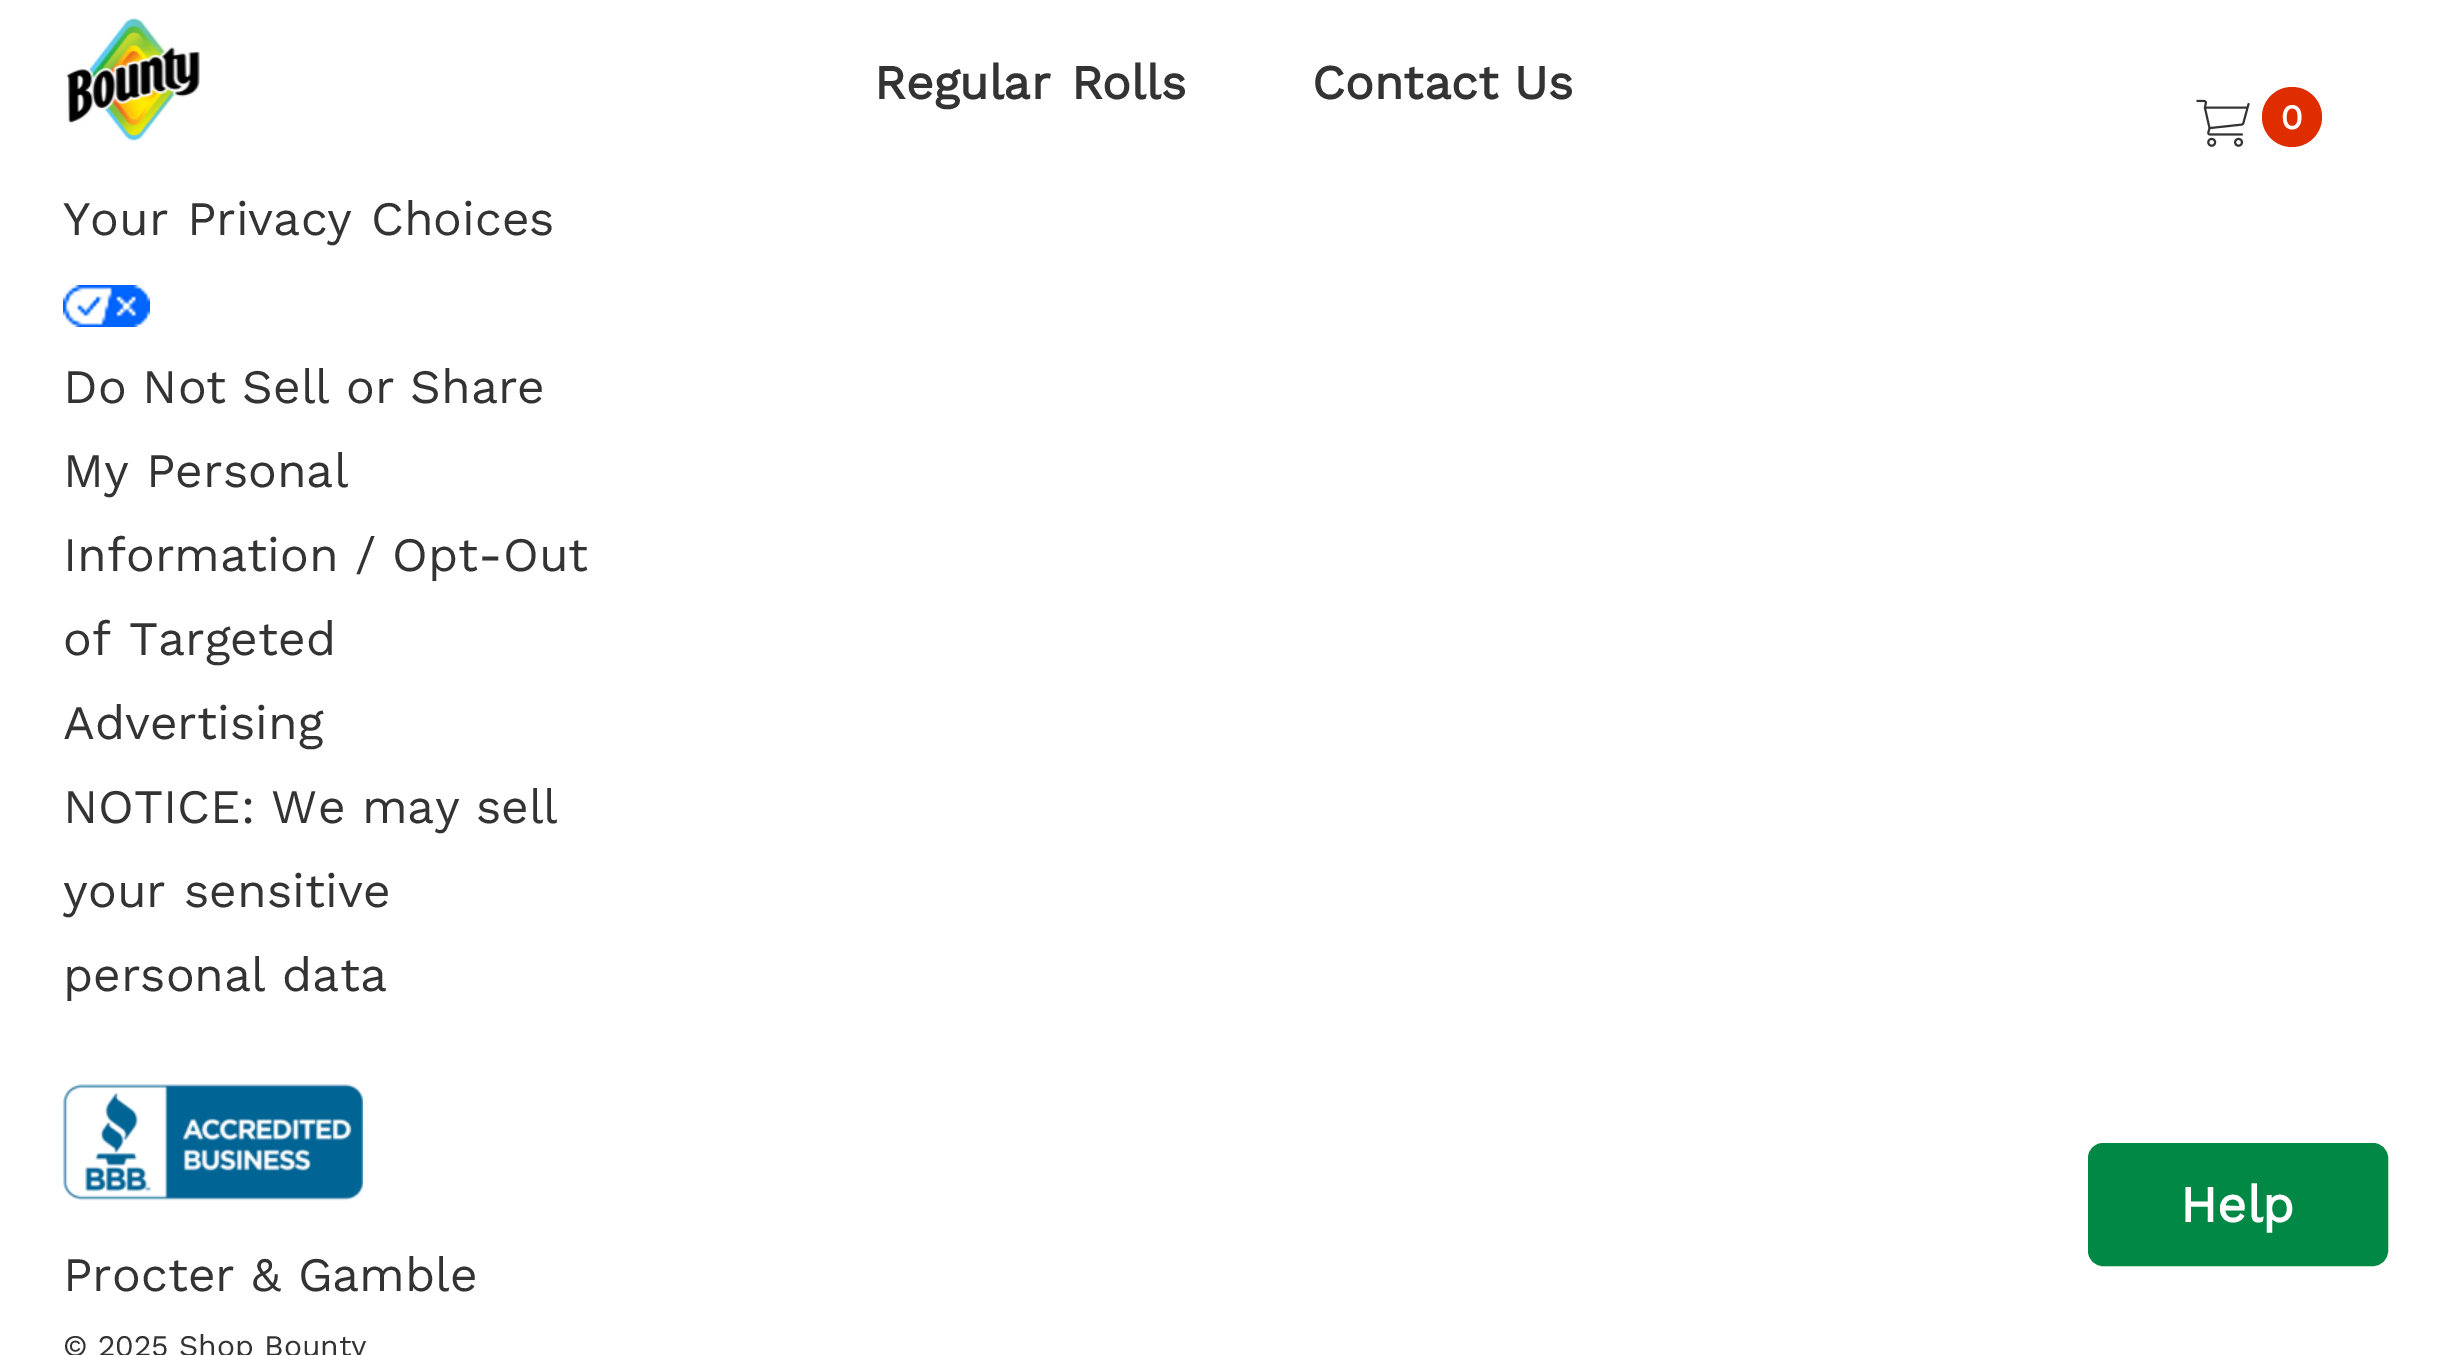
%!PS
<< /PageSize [2447 1355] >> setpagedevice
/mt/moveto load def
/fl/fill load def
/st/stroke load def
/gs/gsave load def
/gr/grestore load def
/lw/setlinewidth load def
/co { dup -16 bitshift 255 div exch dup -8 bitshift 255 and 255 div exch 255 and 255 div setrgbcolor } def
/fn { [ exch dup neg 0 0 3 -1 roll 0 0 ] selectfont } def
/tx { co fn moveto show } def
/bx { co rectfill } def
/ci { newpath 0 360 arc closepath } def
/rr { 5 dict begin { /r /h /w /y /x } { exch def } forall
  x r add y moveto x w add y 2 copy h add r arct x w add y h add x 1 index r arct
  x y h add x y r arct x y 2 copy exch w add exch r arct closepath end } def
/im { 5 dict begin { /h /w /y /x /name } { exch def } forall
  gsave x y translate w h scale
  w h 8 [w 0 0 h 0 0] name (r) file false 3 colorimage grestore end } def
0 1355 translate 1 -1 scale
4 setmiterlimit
0 0 2447 1355 16#FFFFFF bx
(media/1.raw) 66 18 134 123 im
(media/2.raw) 2196 99 54 48 im
16#E02D00 co
2292 117 30 ci fl
(media/3.raw) 63 285 87 42 im
(media/4.raw) 63 1084 300 117 im
16#028845 co
2089.5 1144.5 297 120 13.5 rr gs fl gr
3 lw
st
/WorkSans-Bold 48 fn
16#333333 co
874 99 mt 4 0 32 (Regular Rolls) widthshow
(Contact Us) 1312 99 /WorkSans-Bold 48 16#333333 tx
(0) 2281 129 /Karla-Bold 36 16#FFFFFF tx
/WorkSans-Regular 48 fn
16#333333 co
63 235 mt 2 0 32 (Your Privacy Choices) widthshow
63 403 mt -.5 0 32 (Do Not Sell or Share) widthshow
(My) 63 487 /WorkSans-Regular 48 16#333333 tx
(Personal) 146 487 /WorkSans-Regular 48 16#333333 tx
(Information / Opt-Out) 63 571 /WorkSans-Regular 48 16#333333 tx
63 655 mt 2 0 32 (of Targeted) widthshow
(Advertising) 63 739 /WorkSans-Regular 48 16#333333 tx
(NOTICE: We may sell) 63 823 /WorkSans-Regular 48 16#333333 tx
63 907 mt 2 0 32 (your sensitive) widthshow
(personal data) 63 991 /WorkSans-Regular 48 16#333333 tx
(Procter & Gamble) 63 1291 /WorkSans-Regular 48 16#333333 tx
(© 2025 Shop Bounty) 63 1356 /WorkSans-Regular 30 16#333333 tx
(Help) 2180 1222 /WorkSans-Bold 51 16#FFFFFF tx
showpage
